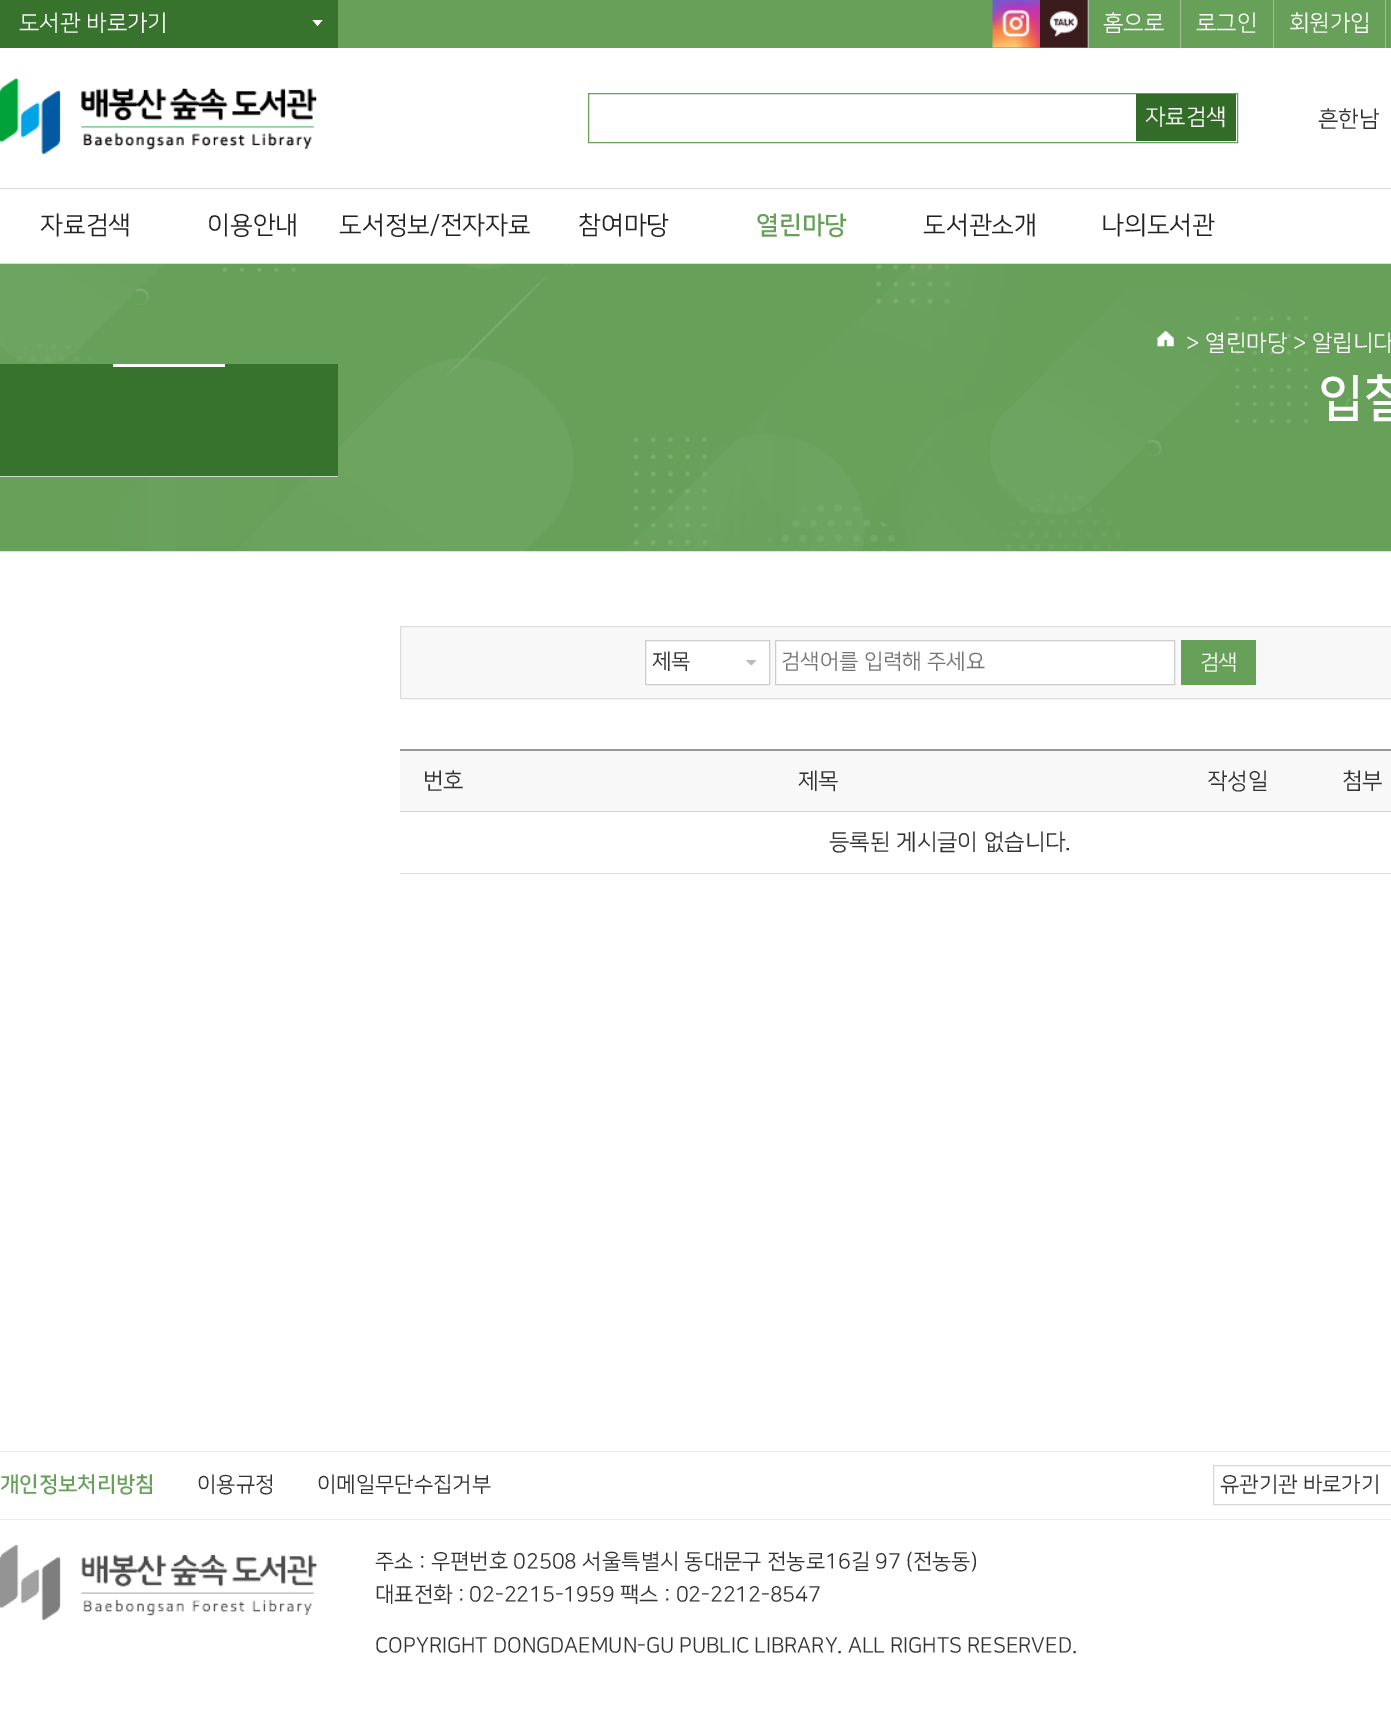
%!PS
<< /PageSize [1391 1720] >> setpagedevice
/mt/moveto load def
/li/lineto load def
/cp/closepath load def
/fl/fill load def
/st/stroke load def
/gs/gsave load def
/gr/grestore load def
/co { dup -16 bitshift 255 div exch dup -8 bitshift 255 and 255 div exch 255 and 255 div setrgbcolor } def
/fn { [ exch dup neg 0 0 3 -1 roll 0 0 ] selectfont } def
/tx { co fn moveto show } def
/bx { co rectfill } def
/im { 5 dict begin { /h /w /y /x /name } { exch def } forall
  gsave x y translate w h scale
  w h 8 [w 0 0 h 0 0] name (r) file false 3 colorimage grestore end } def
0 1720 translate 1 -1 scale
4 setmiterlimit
0 0 1391 1720 16#FFFFFF bx
338 0 1053 48 16#66A059 bx
0 0 338 48 16#38732E bx
16#FFFFFF co
312.5 20 mt 322.5 20 li 317.5 26 li cp fl
(media/1.raw) 992 0 48 48 im
(media/2.raw) 1040 0 48 48 im
1088 0 1 48 16#A1BE9B bx
1180 0 1 48 16#A1BE9B bx
1273 0 1 48 16#A1BE9B bx
1385 0 1 48 16#A1BE9B bx
(media/3.raw) 0 78 317 76 im
16#66A059 co
588.5 93.5 649 49 rectstroke
1136 94 100 47 16#336B29 bx
0 188 1391 1 16#DCDCDC bx
0 263 1391 1 16#DCDCDC bx
(media/4.raw) 0 264 1391 288 im
0 364 338 112 16#38732E bx
113 364 112 3 16#FFFFFF bx
0 476 338 1 16#D5D5D5 bx
(media/5.raw) 1157 331 17 16 im
16#F8F8F8 co
400.5 626.5 mt 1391.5 626.5 li 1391.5 698.5 li 400.5 698.5 li cp gs fl gr
16#DDDDDD co
st
646 641 123 43 16#FFFFFF bx
(media/6.raw) 746 660 11 5 im
16#CCCCCC co
645.5 640.5 124 44 rectstroke
16#FFFFFF co
775.5 640.5 mt 1174.5 640.5 li 1174.5 684.5 li 775.5 684.5 li cp gs fl gr
16#CCCCCC co
st
1181 640 75 45 16#66A059 bx
400 749 991 2 16#999999 bx
400 811 991 1 16#D5D5D5 bx
400 751 991 60 16#F8F8F8 bx
400 873 991 1 16#DDDDDD bx
0 1451 1391 1 16#ECECEC bx
0 1519 1391 1 16#ECECEC bx
16#D7D7D7 co
1213.5 1465.5 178 39 rectstroke
(media/7.raw) 0 1545 318 75 im
(도서관 바로가기) 19 30 /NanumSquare-Regular 22.5 16#FFFFFF tx
(홈으로) 1103 30 /NanumSquare-Regular 22.5 16#FFFFFF tx
(로그인) 1196 30 /NanumSquare-Regular 22.5 16#FFFFFF tx
(회원가입) 1289 30 /NanumSquare-Regular 22.5 16#FFFFFF tx
(자료검색) 1145 124 /NanumSquare-Regular 22.5 16#FFFFFF tx
(흔한남) 1318 126 /NanumSquare-Regular 22.5 16#333333 tx
(자료검색) 40 233 /NanumSquare-Regular 25 16#222222 tx
(이용안내) 207 233 /NanumSquare-Regular 25 16#222222 tx
(도서정보/전자자료) 339 233 /NanumSquare-Regular 25 16#222222 tx
(참여마당) 578 233 /NanumSquare-Regular 25 16#222222 tx
(열린마당) 756 233 /NanumSquare-Bold 25 16#66A059 tx
(도서관소개) 923 233 /NanumSquare-Regular 25 16#222222 tx
(나의도서관) 1101 233 /NanumSquare-Regular 25 16#222222 tx
(> 열린마당 > 알립니다) 1186 350 /NanumSquare-Regular 22.5 16#FFFFFF tx
(입찰) 1318 414 /NanumSquare-Bold 50 16#FFFFFF tx
(제목) 652 668 /NanumSquare-Regular 21.25 16#333333 tx
(검색어를 입력해 주세요) 781 668 /NanumSquare-Regular 21.25 16#757575 tx
16#FFFFFF co
1200 669 mt -1 0 (검색) ashow
(번호) 423 788 /NanumSquare-Regular 22.5 16#333333 tx
(제목) 798 788 /NanumSquare-Regular 22.5 16#333333 tx
(작성일) 1207 788 /NanumSquare-Regular 22.5 16#333333 tx
(첨부) 1342 788 /NanumSquare-Regular 22.5 16#333333 tx
(등록된 게시글이 없습니다.) 829 849 /NanumSquare-Regular 22.5 16#333333 tx
(개인정보처리방침) 0 1491 /NanumSquare-Bold 21.25 16#66A059 tx
(이용규정) 197 1491 /NanumSquare-Regular 21.25 16#333333 tx
(이메일무단수집거부) 317 1491 /NanumSquare-Regular 21.25 16#333333 tx
(유관기관 바로가기) 1220 1491 /NanumSquare-Regular 21.25 16#333333 tx
(주소 : 우편번호 02508 서울특별시 동대문구 전농로16길 97 \(전농동\)) 375 1568 /NanumSquare-Regular 21.25 16#333333 tx
(대표전화 : 02-2215-1959 팩스 : 02-2212-8547) 375 1601 /NanumSquare-Regular 21.25 16#333333 tx
(COPYRIGHT DONGDAEMUN-GU PUBLIC LIBRARY. ALL RIGHTS RESERVED.) 375 1652 /NanumSquare-Regular 21.25 16#333333 tx
showpage
